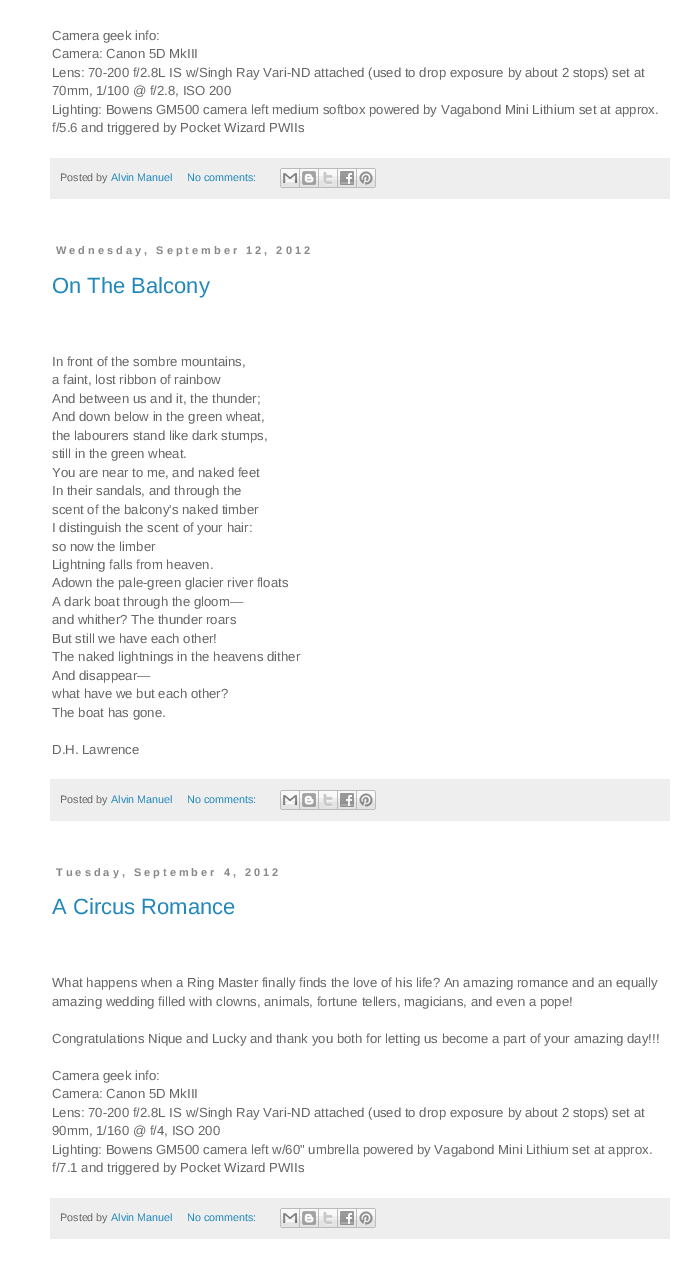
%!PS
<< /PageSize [680 1267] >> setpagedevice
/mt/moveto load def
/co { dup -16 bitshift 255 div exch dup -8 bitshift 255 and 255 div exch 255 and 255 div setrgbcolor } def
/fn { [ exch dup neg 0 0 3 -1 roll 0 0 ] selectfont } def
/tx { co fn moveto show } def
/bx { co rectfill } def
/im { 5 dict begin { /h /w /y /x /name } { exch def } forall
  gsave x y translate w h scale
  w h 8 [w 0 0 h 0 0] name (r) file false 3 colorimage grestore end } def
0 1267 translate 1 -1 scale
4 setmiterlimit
0 0 680 1267 16#FFFFFF bx
50 158 620 41 16#EEEEEE bx
(media/1.raw) 280 168 20 20 im
(media/2.raw) 300 168 19 20 im
(media/3.raw) 319 168 19 20 im
(media/4.raw) 338 168 19 20 im
(media/5.raw) 357 168 19 20 im
50 779 620 42 16#EEEEEE bx
(media/1.raw) 280 790 20 20 im
(media/2.raw) 300 790 19 20 im
(media/3.raw) 319 790 19 20 im
(media/4.raw) 338 790 19 20 im
(media/5.raw) 357 790 19 20 im
50 1198 620 41 16#EEEEEE bx
(media/1.raw) 280 1208 20 20 im
(media/2.raw) 300 1208 19 20 im
(media/3.raw) 319 1208 19 20 im
(media/4.raw) 338 1208 19 20 im
(media/5.raw) 357 1208 19 20 im
(Camera geek info:) 52 40 /LiberationSans-Regular 13.2 16#666666 tx
(Camera: Canon 5D MkIII) 52 58 /LiberationSans-Regular 13.2 16#666666 tx
(Lens: 70-200 f/2.8L IS w/Singh Ray Vari-ND attached \(used to drop exposure by about 2 stops\) set at) 52 77 /LiberationSans-Regular 13.2 16#666666 tx
(70mm, 1/100 @ f/2.8, ISO 200) 52 95 /LiberationSans-Regular 13.2 16#666666 tx
(Lighting: Bowens GM500 camera left medium softbox powered by Vagabond Mini Lithium set at approx.) 52 114 /LiberationSans-Regular 13.2 16#666666 tx
(f/5.6 and triggered by Pocket Wizard PWIIs) 52 132 /LiberationSans-Regular 13.2 16#666666 tx
(Posted by) 60 181 /LiberationSans-Regular 10.75 16#666666 tx
(Alvin Manuel) 111 181 /LiberationSans-Regular 10.75 16#2288BB tx
(No comments:) 187 181 /LiberationSans-Regular 10.75 16#2288BB tx
/LiberationSans-Bold 11 fn
16#888888 co
56 254 mt 3 0 (Wednesday, September 12, 2012) ashow
(On The Balcony) 52 293 /LiberationSans-Regular 22 16#2288BB tx
(In front of the sombre mountains,) 52 366 /LiberationSans-Regular 13.2 16#666666 tx
(a faint, lost ribbon of rainbow) 52 384 /LiberationSans-Regular 13.2 16#666666 tx
(And between us and it, the thunder;) 52 403 /LiberationSans-Regular 13.2 16#666666 tx
(And down below in the green wheat,) 52 421 /LiberationSans-Regular 13.2 16#666666 tx
(the labourers stand like dark stumps,) 52 440 /LiberationSans-Regular 13.2 16#666666 tx
(still in the green wheat.) 52 458 /LiberationSans-Regular 13.2 16#666666 tx
(You are near to me, and naked feet) 52 477 /LiberationSans-Regular 13.2 16#666666 tx
(In their sandals, and through the) 52 495 /LiberationSans-Regular 13.2 16#666666 tx
(scent of the balcony's naked timber) 52 514 /LiberationSans-Regular 13.2 16#666666 tx
(I distinguish the scent of your hair:) 52 532 /LiberationSans-Regular 13.2 16#666666 tx
(so now the limber) 52 551 /LiberationSans-Regular 13.2 16#666666 tx
(Lightning falls from heaven.) 52 569 /LiberationSans-Regular 13.2 16#666666 tx
(Adown the pale-green glacier river floats) 52 587 /LiberationSans-Regular 13.2 16#666666 tx
(A dark boat through the gloom—) 52 606 /LiberationSans-Regular 13.2 16#666666 tx
(and whither? The thunder roars) 52 624 /LiberationSans-Regular 13.2 16#666666 tx
(But still we have each other!) 52 643 /LiberationSans-Regular 13.2 16#666666 tx
(The naked lightnings in the heavens dither) 52 661 /LiberationSans-Regular 13.2 16#666666 tx
(And disappear—) 52 680 /LiberationSans-Regular 13.2 16#666666 tx
(what have we but each other?) 52 698 /LiberationSans-Regular 13.2 16#666666 tx
(The boat has gone.) 52 717 /LiberationSans-Regular 13.2 16#666666 tx
(D.H. Lawrence) 52 754 /LiberationSans-Regular 13.2 16#666666 tx
(Posted by) 60 803 /LiberationSans-Regular 10.75 16#666666 tx
(Alvin Manuel) 111 803 /LiberationSans-Regular 10.75 16#2288BB tx
(No comments:) 187 803 /LiberationSans-Regular 10.75 16#2288BB tx
/LiberationSans-Bold 11 fn
16#888888 co
56 876 mt 3 0 (Tuesday, September 4, 2012) ashow
(A Circus Romance) 52 914 /LiberationSans-Regular 22 16#2288BB tx
(What happens when a Ring Master finally finds the love of his life? An amazing romance and an equally) 52 987 /LiberationSans-Regular 13.2 16#666666 tx
(amazing wedding filled with clowns, animals, fortune tellers, magicians, and even a pope!) 52 1006 /LiberationSans-Regular 13.2 16#666666 tx
(Congratulations Nique and Lucky and thank you both for letting us become a part of your amazing day!!!) 52 1043 /LiberationSans-Regular 13.2 16#666666 tx
(Camera geek info:) 52 1080 /LiberationSans-Regular 13.2 16#666666 tx
(Camera: Canon 5D MkIII) 52 1098 /LiberationSans-Regular 13.2 16#666666 tx
(Lens: 70-200 f/2.8L IS w/Singh Ray Vari-ND attached \(used to drop exposure by about 2 stops\) set at) 52 1117 /LiberationSans-Regular 13.2 16#666666 tx
(90mm, 1/160 @ f/4, ISO 200) 52 1135 /LiberationSans-Regular 13.2 16#666666 tx
(Lighting: Bowens GM500 camera left w/60" umbrella powered by Vagabond Mini Lithium set at approx.) 52 1154 /LiberationSans-Regular 13.2 16#666666 tx
(f/7.1 and triggered by Pocket Wizard PWIIs) 52 1172 /LiberationSans-Regular 13.2 16#666666 tx
(Posted by) 60 1221 /LiberationSans-Regular 10.75 16#666666 tx
(Alvin Manuel) 111 1221 /LiberationSans-Regular 10.75 16#2288BB tx
(No comments:) 187 1221 /LiberationSans-Regular 10.75 16#2288BB tx
showpage
